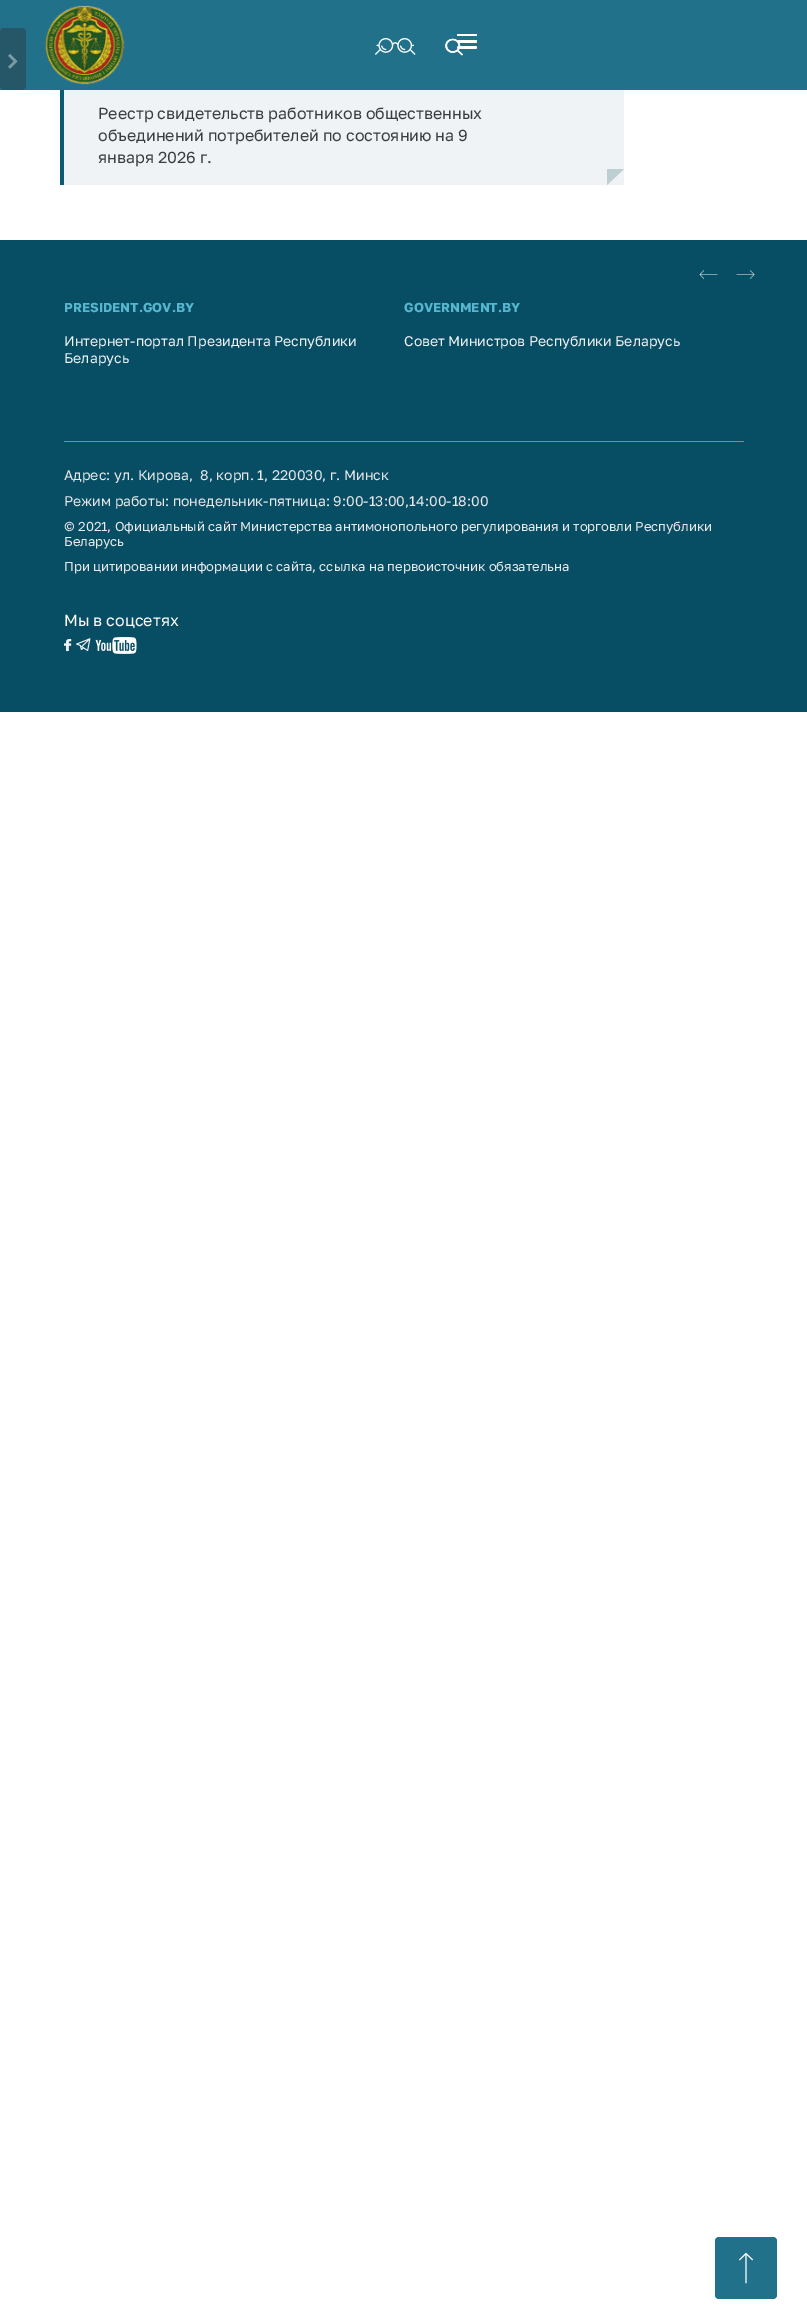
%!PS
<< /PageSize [807 2319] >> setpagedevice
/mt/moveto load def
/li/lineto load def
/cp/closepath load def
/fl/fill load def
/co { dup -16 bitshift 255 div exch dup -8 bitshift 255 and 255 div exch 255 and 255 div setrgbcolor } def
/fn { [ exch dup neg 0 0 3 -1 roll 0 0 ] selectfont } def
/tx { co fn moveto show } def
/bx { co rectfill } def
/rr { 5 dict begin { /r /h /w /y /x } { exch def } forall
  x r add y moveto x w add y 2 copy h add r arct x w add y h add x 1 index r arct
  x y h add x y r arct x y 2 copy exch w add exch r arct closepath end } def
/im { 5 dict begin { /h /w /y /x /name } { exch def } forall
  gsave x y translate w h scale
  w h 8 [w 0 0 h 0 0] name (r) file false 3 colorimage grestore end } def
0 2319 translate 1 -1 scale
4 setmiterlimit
0 0 807 2319 16#FFFFFF bx
60 87 4 98 16#105A71 bx
0 0 807 90 16#21718A bx
(media/1.raw) 45 5 80 80 im
(media/2.raw) 375 38 41 17 im
16#FFFFFF co
457 40 20 3 1.5 rr fl
457 46 20 3 1.5 rr fl
(media/3.raw) 445 38 18 18 im
457 34 20 2 1 rr fl
16#255768 co
0 28 26 62 4 rr fl
(media/4.raw) 8 54 10 15 im
64 90 560 95 16#F0F3F6 bx
16#BDCFD3 co
607 169 mt 624 169 li 607 185 li cp fl
0 240 807 472 16#074D63 bx
(media/5.raw) 699 270 19 9 im
(media/6.raw) 736 270 19 9 im
64 441 680 1 16#878B90 bx
(media/7.raw) 64 639 8 13 im
(media/8.raw) 76 638 15 14 im
(media/9.raw) 95 637 42 17 im
16#21718A co
715 2237 62 62 4 rr fl
(media/10.raw) 739 2252 14 32 im
(Реестр свидетельств работников общественных) 98 119 /GolosText-Regular 16 16#3B3C41 tx
(объединений потребителей по состоянию на 9) 98 141 /GolosText-Regular 16 16#3B3C41 tx
(января 2026 г.) 98 163 /GolosText-Regular 16 16#3B3C41 tx
(PRESIDENT.GOV.BY) 64 312 /GolosText-Bold 13 16#55B6CE tx
(Интернет-портал Президента Республики) 64 346 /GolosText-Regular 14 16#F0F3F6 tx
(Беларусь) 64 363 /GolosText-Regular 14 16#F0F3F6 tx
(GOVERNMENT.BY) 404 312 /GolosText-Bold 13 16#55B6CE tx
(Совет Министров Республики Беларусь) 404 346 /GolosText-Regular 14 16#F0F3F6 tx
(Адрес: ул. Кирова,  8, корп. 1, 220030, г. Минск) 64 480 /GolosText-Regular 14 16#E8E9EB tx
(Режим работы: понедельник-пятница: 9:00-13:00,14:00-18:00) 64 506 /GolosText-Regular 14 16#E8E9EB tx
(© 2021, Официальный сайт Министерства антимонопольного регулирования и торговли Республики) 64 531 /GolosText-Regular 13 16#E8E9EB tx
(Беларусь) 64 546 /GolosText-Regular 13 16#E8E9EB tx
(При цитировании информации с сайта, ссылка на первоисточник обязательна) 64 571 /GolosText-Regular 13 16#E8E9EB tx
(Мы в соцсетях) 64 626 /GolosText-Regular 16 16#FFFFFF tx
showpage
